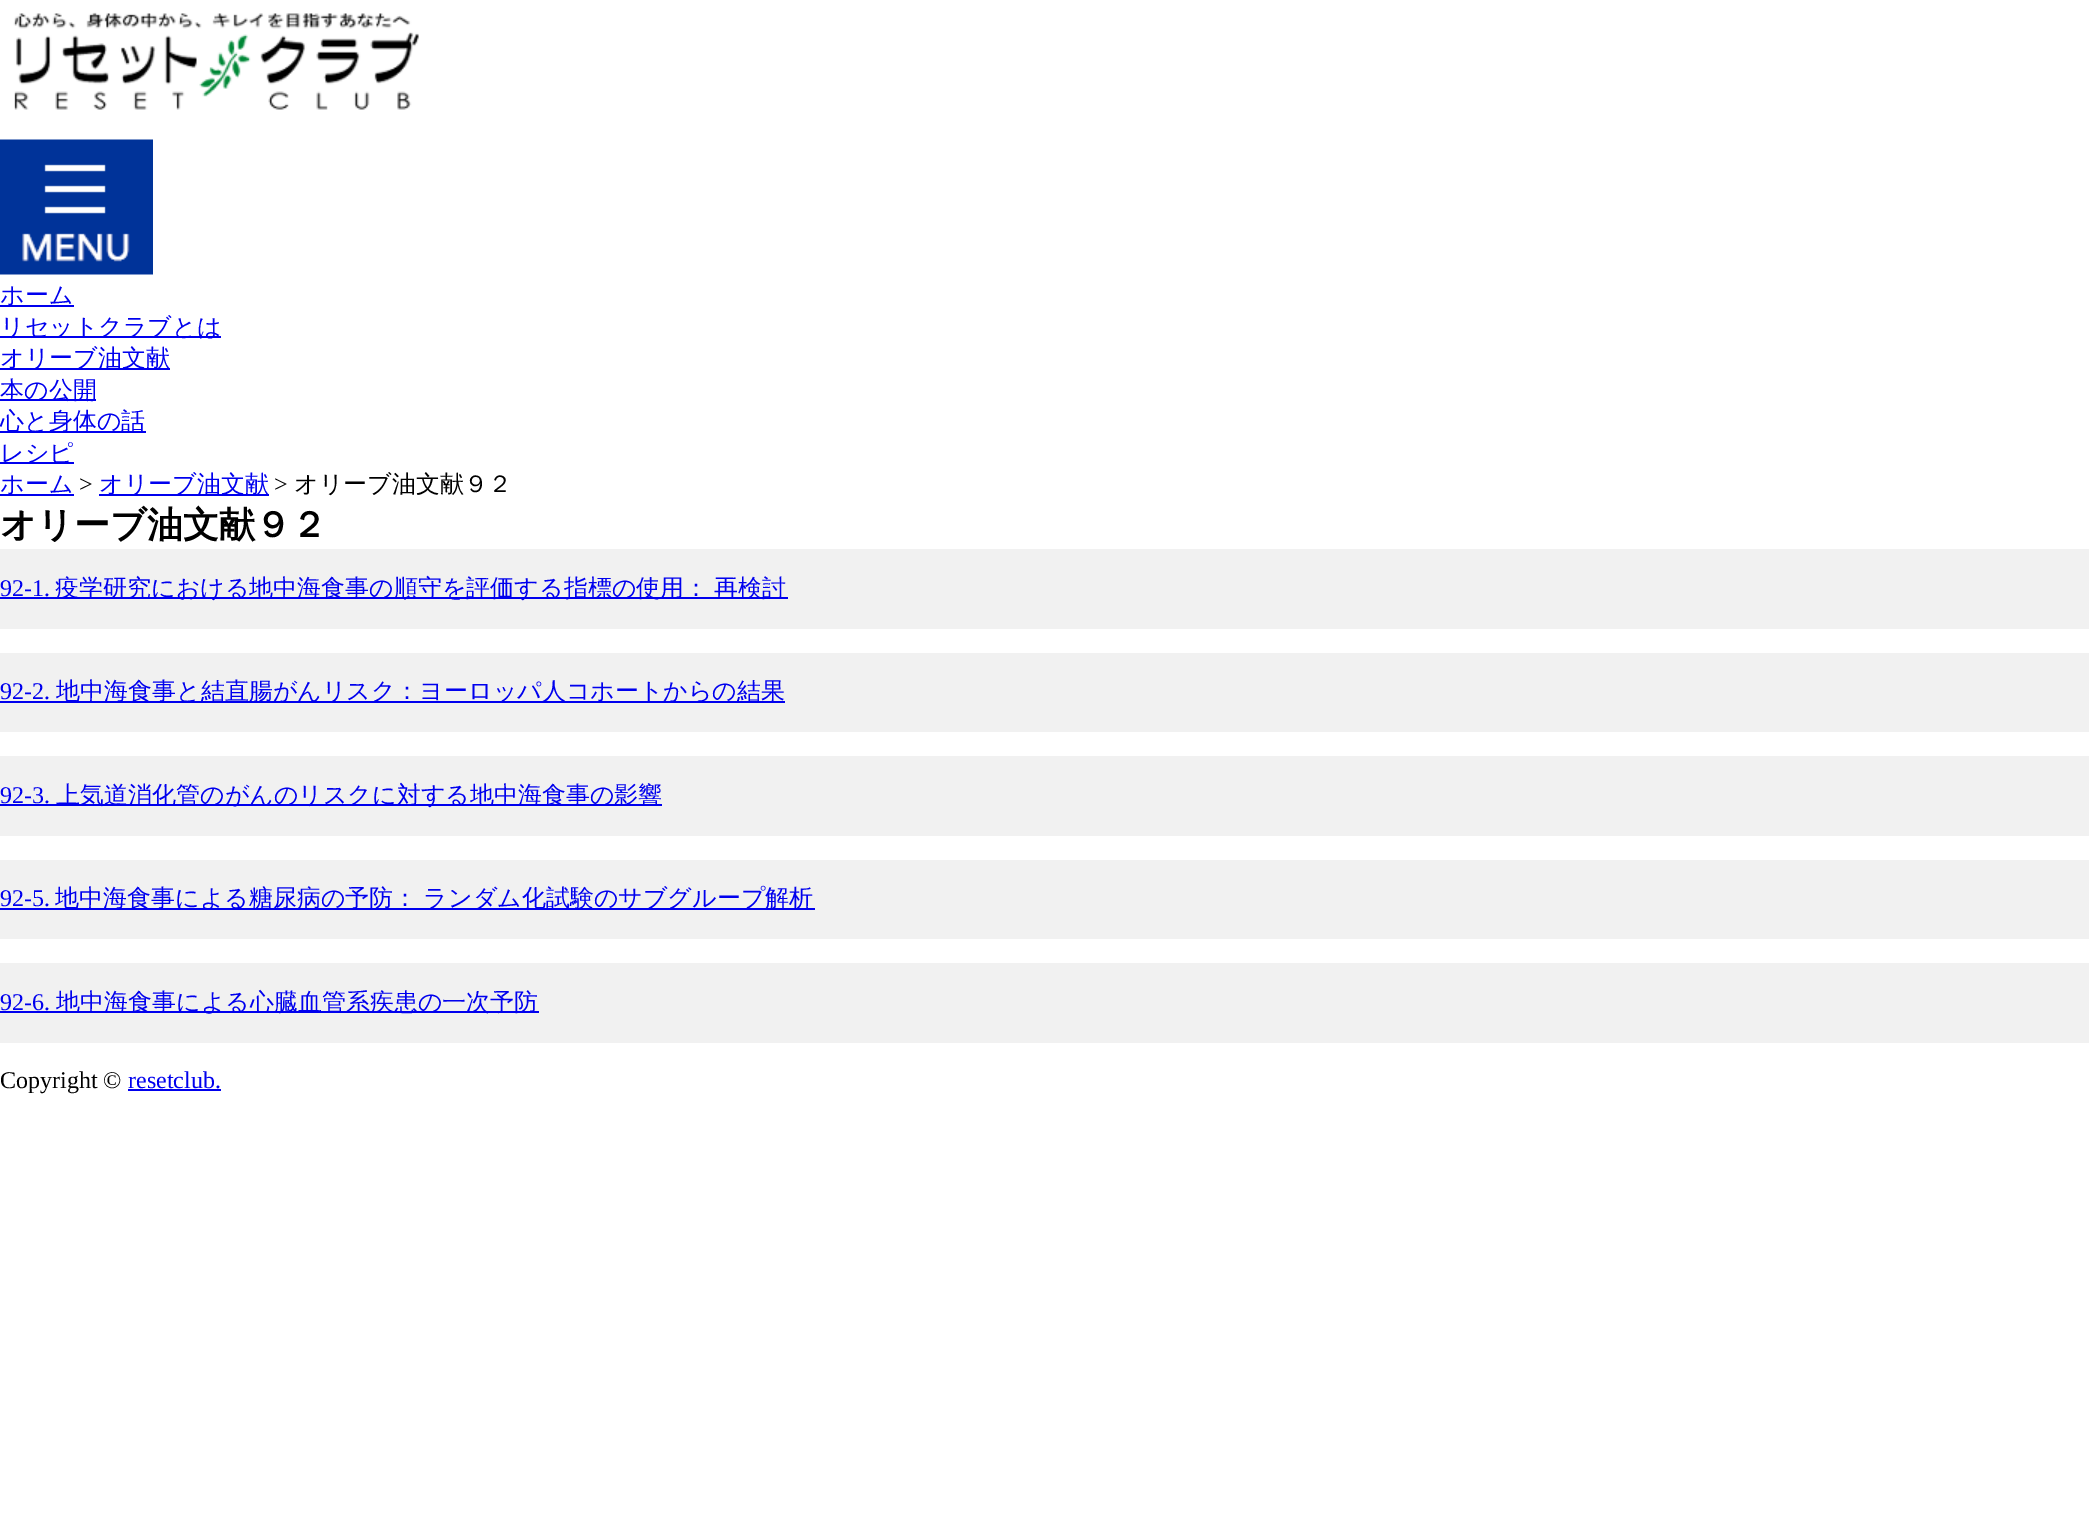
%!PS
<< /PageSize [2089 1537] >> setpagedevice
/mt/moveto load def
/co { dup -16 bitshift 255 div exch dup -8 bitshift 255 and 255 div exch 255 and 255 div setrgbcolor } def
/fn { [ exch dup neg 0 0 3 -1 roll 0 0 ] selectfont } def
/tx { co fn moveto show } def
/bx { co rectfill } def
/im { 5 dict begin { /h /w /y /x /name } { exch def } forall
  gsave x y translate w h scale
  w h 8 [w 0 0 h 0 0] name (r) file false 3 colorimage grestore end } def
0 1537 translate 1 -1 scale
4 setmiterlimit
0 0 2089 1537 16#FFFFFF bx
(media/1.raw) 13 12 406 98 im
(media/2.raw) 0 139 153 136 im
0 305 74 2 16#0000EE bx
0 336 221 2 16#0000EE bx
0 368 170 2 16#0000EE bx
0 399 96 2 16#0000EE bx
0 431 146 2 16#0000EE bx
0 462 74 2 16#0000EE bx
0 494 74 2 16#0000EE bx
99 494 170 2 16#0000EE bx
0 549 2089 80 16#F1F1F1 bx
0 597 788 2 16#0000EE bx
0 653 2089 79 16#F1F1F1 bx
0 701 785 2 16#0000EE bx
0 756 2089 80 16#F1F1F1 bx
0 804 662 2 16#0000EE bx
0 860 2089 79 16#F1F1F1 bx
0 908 815 2 16#0000EE bx
0 963 2089 80 16#F1F1F1 bx
0 1011 539 2 16#0000EE bx
128 1089 93 2 16#0000EE bx
(ホーム) 0 303 /WenQuanYiZenHei-Medium 24 16#0000EE tx
(リセットクラブとは) 0 335 /WenQuanYiZenHei-Medium 24 16#0000EE tx
(オリーブ油文献) 0 366 /WenQuanYiZenHei-Medium 24 16#0000EE tx
(本の公開) 0 398 /WenQuanYiZenHei-Medium 24 16#0000EE tx
(心と身体の話) 0 429 /WenQuanYiZenHei-Medium 24 16#0000EE tx
(レシピ) 0 461 /WenQuanYiZenHei-Medium 24 16#0000EE tx
(ホーム) 0 492 /WenQuanYiZenHei-Medium 24 16#0000EE tx
(>) 79 492 /LiberationSerif-Regular 24 16#000000 tx
(オリーブ油文献) 99 492 /WenQuanYiZenHei-Medium 24 16#0000EE tx
(>) 274 492 /LiberationSerif-Regular 24 16#000000 tx
(オリーブ油文献９２) 294 492 /WenQuanYiZenHei-Medium 24 16#000000 tx
(オリーブ油文献９２) 0 537 /WenQuanYiZenHei-Bold 36 16#000000 tx
(92-1.) 0 596 /LiberationSerif-Regular 24 16#0000EE tx
/WenQuanYiZenHei-Medium 24 fn
55 596 mt -1 0 32 (疫学研究における地中海食事の順守を評価する指標の使用： 再検討) widthshow
(92-2.) 0 699 /LiberationSerif-Regular 24 16#0000EE tx
(地中海食事と結直腸がんリスク：ヨーロッパ人コホートからの結果) 56 699 /WenQuanYiZenHei-Medium 24 16#0000EE tx
(92-3.) 0 803 /LiberationSerif-Regular 24 16#0000EE tx
(上気道消化管のがんのリスクに対する地中海食事の影響) 56 803 /WenQuanYiZenHei-Medium 24 16#0000EE tx
(92-5.) 0 906 /LiberationSerif-Regular 24 16#0000EE tx
/WenQuanYiZenHei-Medium 24 fn
55 906 mt -1 0 32 (地中海食事による糖尿病の予防： ランダム化試験のサブグループ解析) widthshow
(92-6.) 0 1010 /LiberationSerif-Regular 24 16#0000EE tx
(地中海食事による心臓血管系疾患の一次予防) 56 1010 /WenQuanYiZenHei-Medium 24 16#0000EE tx
(Copyright ©) 0 1088 /LiberationSerif-Regular 24 16#000000 tx
(resetclub.) 128 1088 /LiberationSerif-Regular 24 16#0000EE tx
showpage
